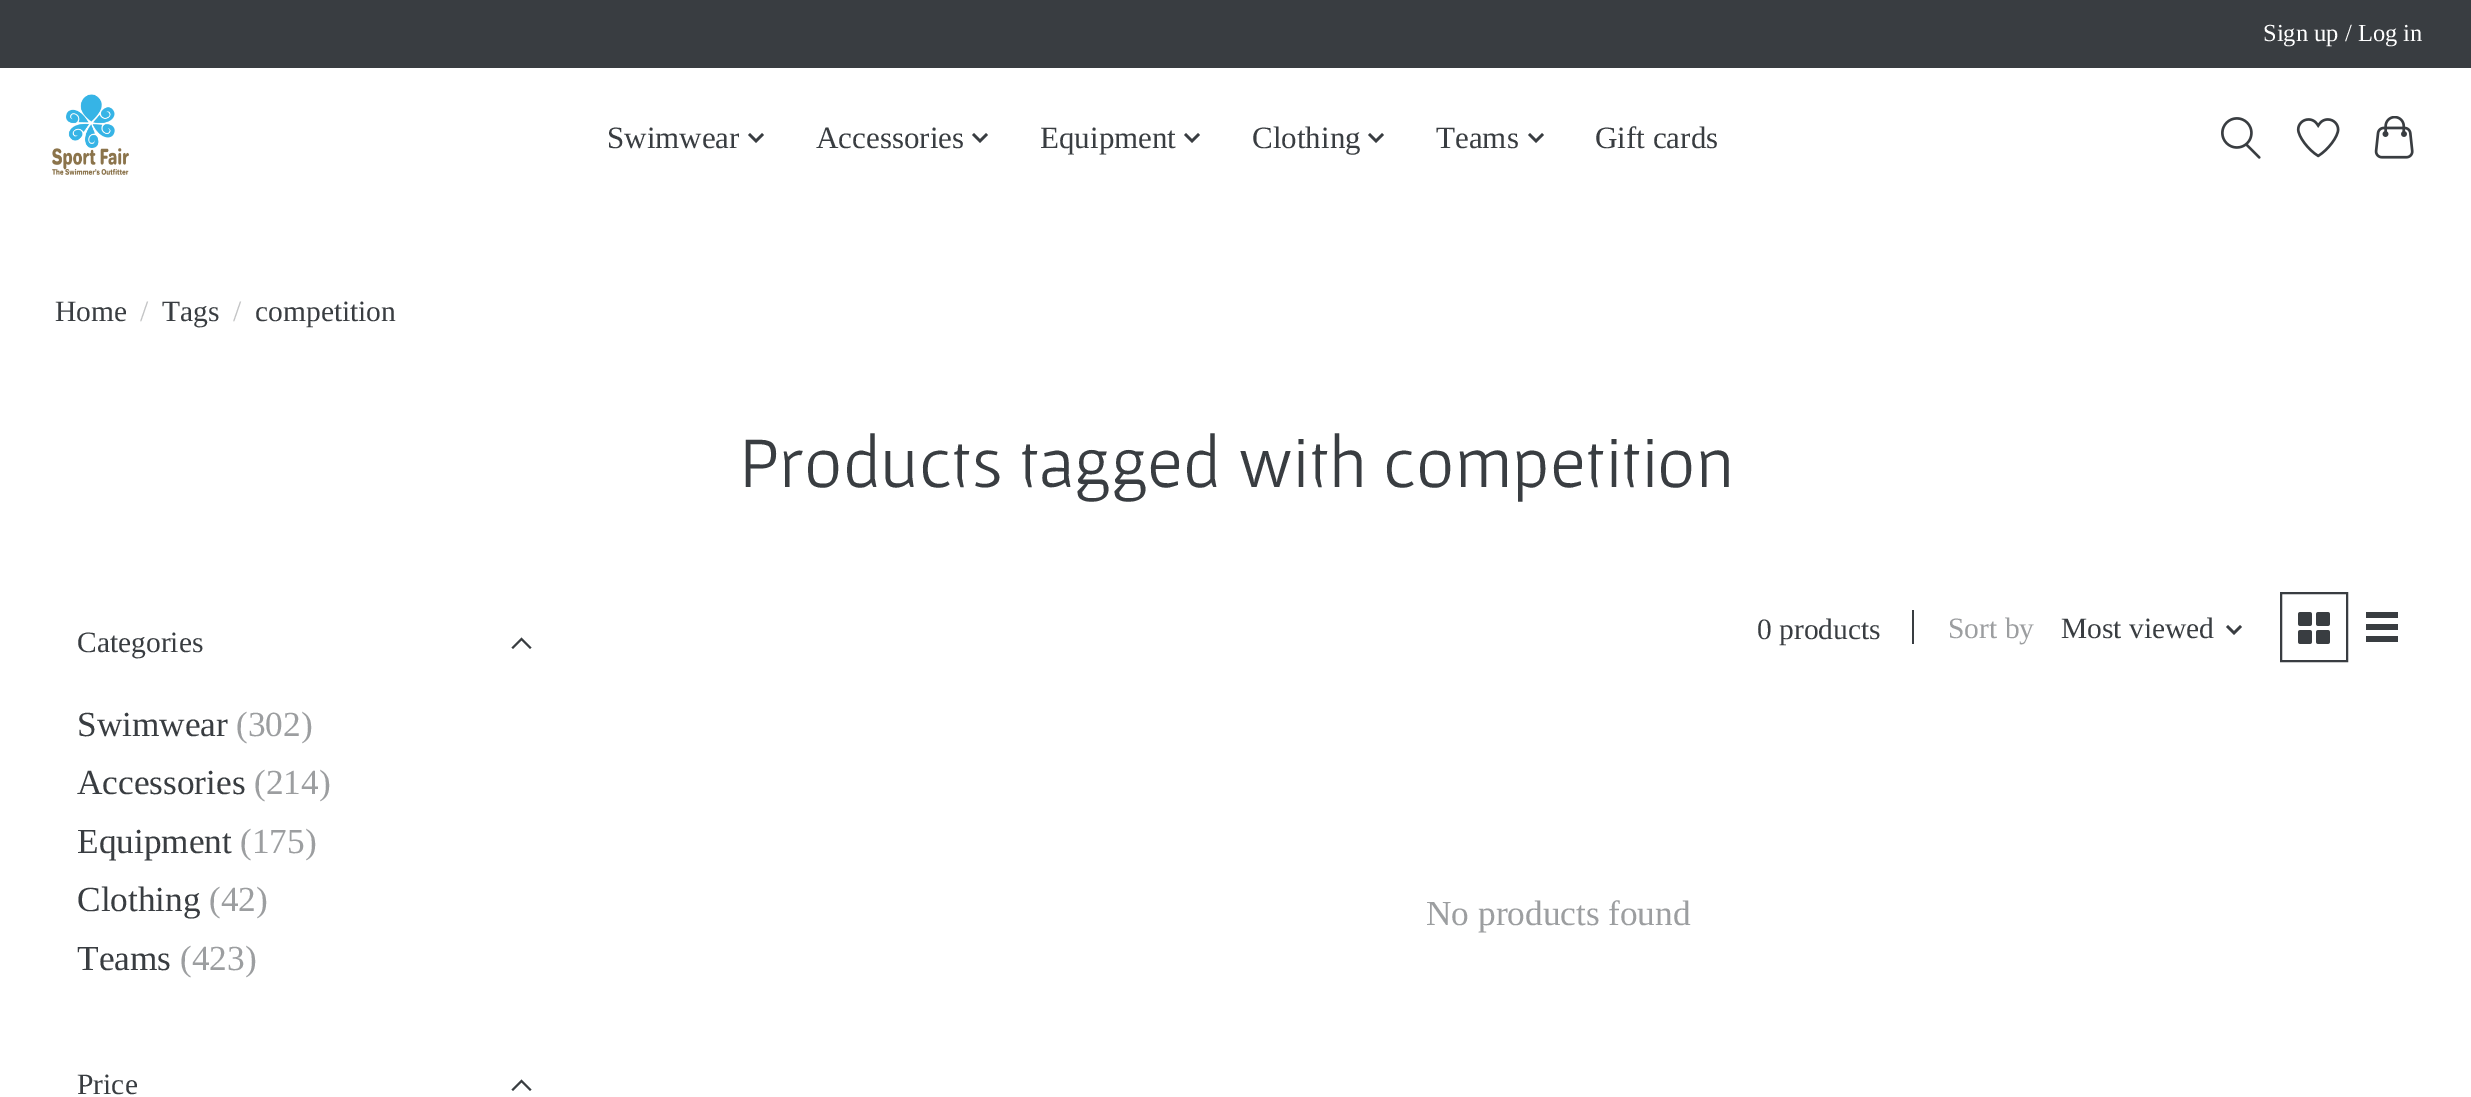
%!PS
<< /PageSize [2471 1097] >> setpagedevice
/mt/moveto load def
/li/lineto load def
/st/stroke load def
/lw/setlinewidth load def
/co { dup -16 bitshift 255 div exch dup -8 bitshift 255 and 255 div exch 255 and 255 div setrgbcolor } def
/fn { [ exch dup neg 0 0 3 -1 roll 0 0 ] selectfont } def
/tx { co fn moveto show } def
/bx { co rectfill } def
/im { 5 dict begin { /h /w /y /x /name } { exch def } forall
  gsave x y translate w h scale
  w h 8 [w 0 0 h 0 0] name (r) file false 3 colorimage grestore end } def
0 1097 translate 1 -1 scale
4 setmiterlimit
0 0 2471 1097 16#FFFFFF bx
0 0 2471 68 16#393D41 bx
(media/1.raw) 52 94 77 81 im
(media/2.raw) 748 133 16 10 im
(media/2.raw) 972 133 16 10 im
(media/2.raw) 1184 133 16 10 im
(media/2.raw) 1368 133 16 10 im
(media/2.raw) 1528 133 16 10 im
(media/3.raw) 2221 117 40 42 im
(media/4.raw) 2296 118 44 40 im
(media/5.raw) 2374 116 40 43 im
2.1 lw
2 setlinecap
513 647.5 mt 521.5 639 li 530 647.5 mt 521.5 639 li st
513 1089.5 mt 521.5 1081 li 530 1089.5 mt 521.5 1081 li st
1912 610 2 34 16#393D41 bx
(media/2.raw) 2226 625 16 10 im
2 lw
0 setlinecap
2281 593 66 68 rectstroke
(media/6.raw) 2298 612 32 32 im
2366 612 32 6 16#393D41 bx
2366 624 32 6 16#393D41 bx
2366 636 32 6 16#393D41 bx
(Sign up / Log in) 2263 41 /LiberationSerif-Regular 24.5 16#FFFFFF tx
(Swimwear) 607 148 /LiberationSerif-Regular 31 16#393D41 tx
(Accessories) 816 148 /LiberationSerif-Regular 31 16#393D41 tx
(Equipment) 1040 148 /LiberationSerif-Regular 31 16#393D41 tx
(Clothing) 1252 148 /LiberationSerif-Regular 31 16#393D41 tx
(Teams) 1436 148 /LiberationSerif-Regular 31 16#393D41 tx
(Gift cards) 1595 148 /LiberationSerif-Regular 31 16#393D41 tx
(Home) 55 321 /LiberationSerif-Regular 29.5 16#393D41 tx
(/) 140 321 /LiberationSerif-Regular 29.5 16#C4C5C6 tx
(Tags) 162 321 /LiberationSerif-Regular 29.5 16#393D41 tx
(/) 233 321 /LiberationSerif-Regular 29.5 16#C4C5C6 tx
(competition) 255 321 /LiberationSerif-Regular 29.5 16#393D41 tx
(Products tagged with competition) 739 487 /Gafata-Regular 73 16#393D41 tx
(Categories) 77 652 /LiberationSerif-Regular 29.5 16#393D41 tx
(Swimwear) 77 736 /LiberationSerif-Regular 35.25 16#393D41 tx
(\(302\)) 236 736 /LiberationSerif-Regular 35.25 16#9C9EA0 tx
(Accessories) 77 794 /LiberationSerif-Regular 35.25 16#393D41 tx
(\(214\)) 254 794 /LiberationSerif-Regular 35.25 16#9C9EA0 tx
(Equipment) 77 853 /LiberationSerif-Regular 35.25 16#393D41 tx
(\(175\)) 240 853 /LiberationSerif-Regular 35.25 16#9C9EA0 tx
(Clothing) 77 911 /LiberationSerif-Regular 35.25 16#393D41 tx
(\(42\)) 209 911 /LiberationSerif-Regular 35.25 16#9C9EA0 tx
(Teams) 77 970 /LiberationSerif-Regular 35.25 16#393D41 tx
(\(423\)) 180 970 /LiberationSerif-Regular 35.25 16#9C9EA0 tx
(Price) 77 1094 /LiberationSerif-Regular 29.5 16#393D41 tx
(0 products) 1757 639 /LiberationSerif-Regular 29.5 16#393D41 tx
(Sort by) 1948 638 /LiberationSerif-Regular 29.5 16#9C9EA0 tx
(Most viewed) 2061 638 /LiberationSerif-Regular 29.5 16#393D41 tx
(No products found) 1426 925 /LiberationSerif-Regular 35.25 16#9C9EA0 tx
showpage
